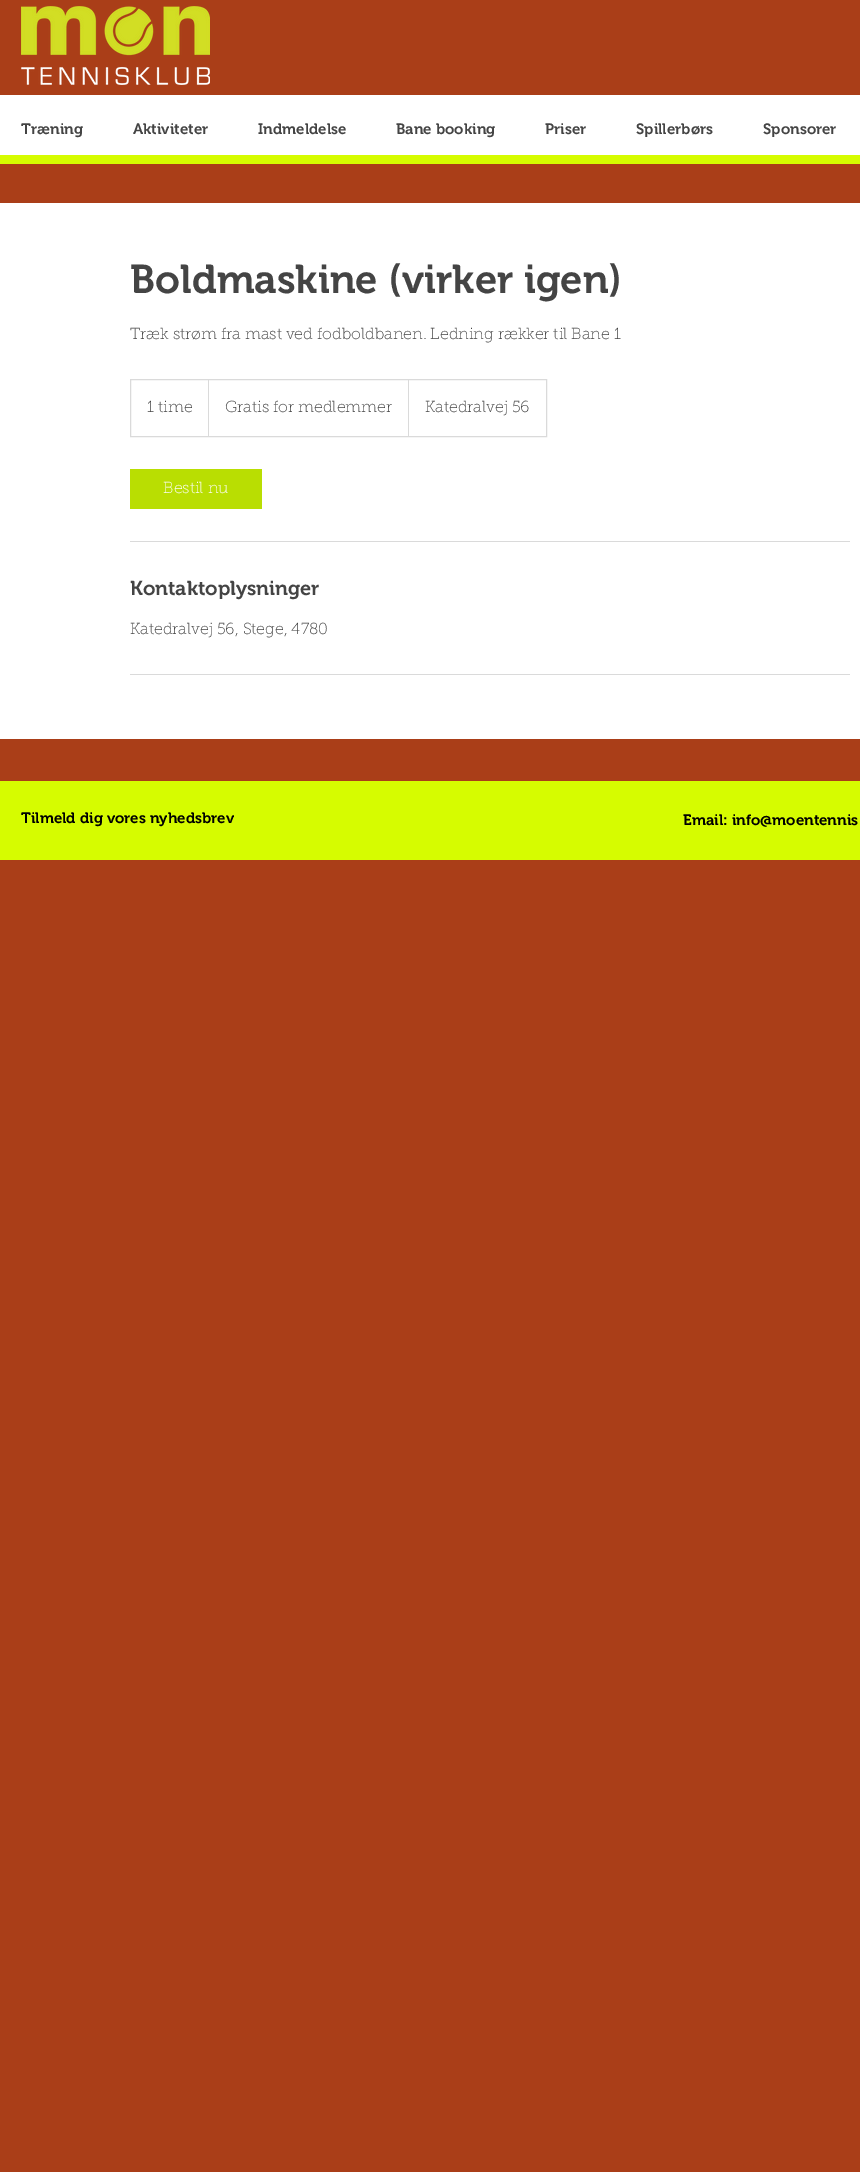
%!PS
<< /PageSize [860 2172] >> setpagedevice
/mt/moveto load def
/li/lineto load def
/cp/closepath load def
/fl/fill load def
/co { dup -16 bitshift 255 div exch dup -8 bitshift 255 and 255 div exch 255 and 255 div setrgbcolor } def
/fn { [ exch dup neg 0 0 3 -1 roll 0 0 ] selectfont } def
/tx { co fn moveto show } def
/bx { co rectfill } def
/im { 5 dict begin { /h /w /y /x /name } { exch def } forall
  gsave x y translate w h scale
  w h 8 [w 0 0 h 0 0] name (r) file false 3 colorimage grestore end } def
0 2172 translate 1 -1 scale
4 setmiterlimit
0 0 860 2172 16#AA3E18 bx
(media/1.raw) 21 6 189 79 im
0 95 860 60 16#FFFFFF bx
0 155 860 9 16#D6FC00 bx
0 203 860 536 16#FFFFFF bx
16#DADADA co
130.5 379.5 416 57 rectstroke
208 436 mt 208 379 li 209 380 li 209 436 li cp fl
408 436 mt 408 379 li 409 380 li 409 436 li cp fl
130 469 132 40 16#B9DE02 bx
130 541 720 1 16#DADADA bx
130 674 720 1 16#DADADA bx
0 781 860 79 16#D6FC00 bx
(Træning) 21 134 /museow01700-SemiBold 15 16#444444 tx
(Aktiviteter) 133 134 /museow01700-SemiBold 15 16#444444 tx
(Indmeldelse) 258 134 /museow01700-SemiBold 15 16#444444 tx
(Bane booking) 396 134 /museow01700-SemiBold 15 16#444444 tx
(Priser) 545 134 /museow01700-SemiBold 15 16#444444 tx
(Spillerbørs) 636 134 /museow01700-SemiBold 15 16#444444 tx
(Sponsorer) 763 134 /museow01700-SemiBold 15 16#444444 tx
(Boldmaskine \(virker igen\)) 130 293 /museow01700-SemiBold 40 16#444444 tx
(Træk strøm fra mast ved fodboldbanen. Ledning rækker til Bane 1) 130 339 /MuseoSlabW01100-Thin 16 16#444444 tx
(1 time) 147 412 /MuseoSlabW01100-Thin 16 16#444444 tx
(Gratis for medlemmer) 225 412 /MuseoSlabW01100-Thin 16 16#444444 tx
(Katedralvej 56) 425 412 /MuseoSlabW01100-Thin 16 16#444444 tx
(Bestil nu) 163 493 /MuseoSlabW01100-Thin 16 16#FFFFFF tx
(Kontaktoplysninger) 130 595 /museow01700-SemiBold 20 16#444444 tx
(Katedralvej 56, Stege, 4780) 130 634 /MuseoSlabW01100-Thin 16 16#444444 tx
(Tilmeld dig vores nyhedsbrev) 21 823 /museow01700-SemiBold 15 16#000000 tx
(Email: info@moentennis) 683 825 /museow01700-SemiBold 15 16#000000 tx
showpage
